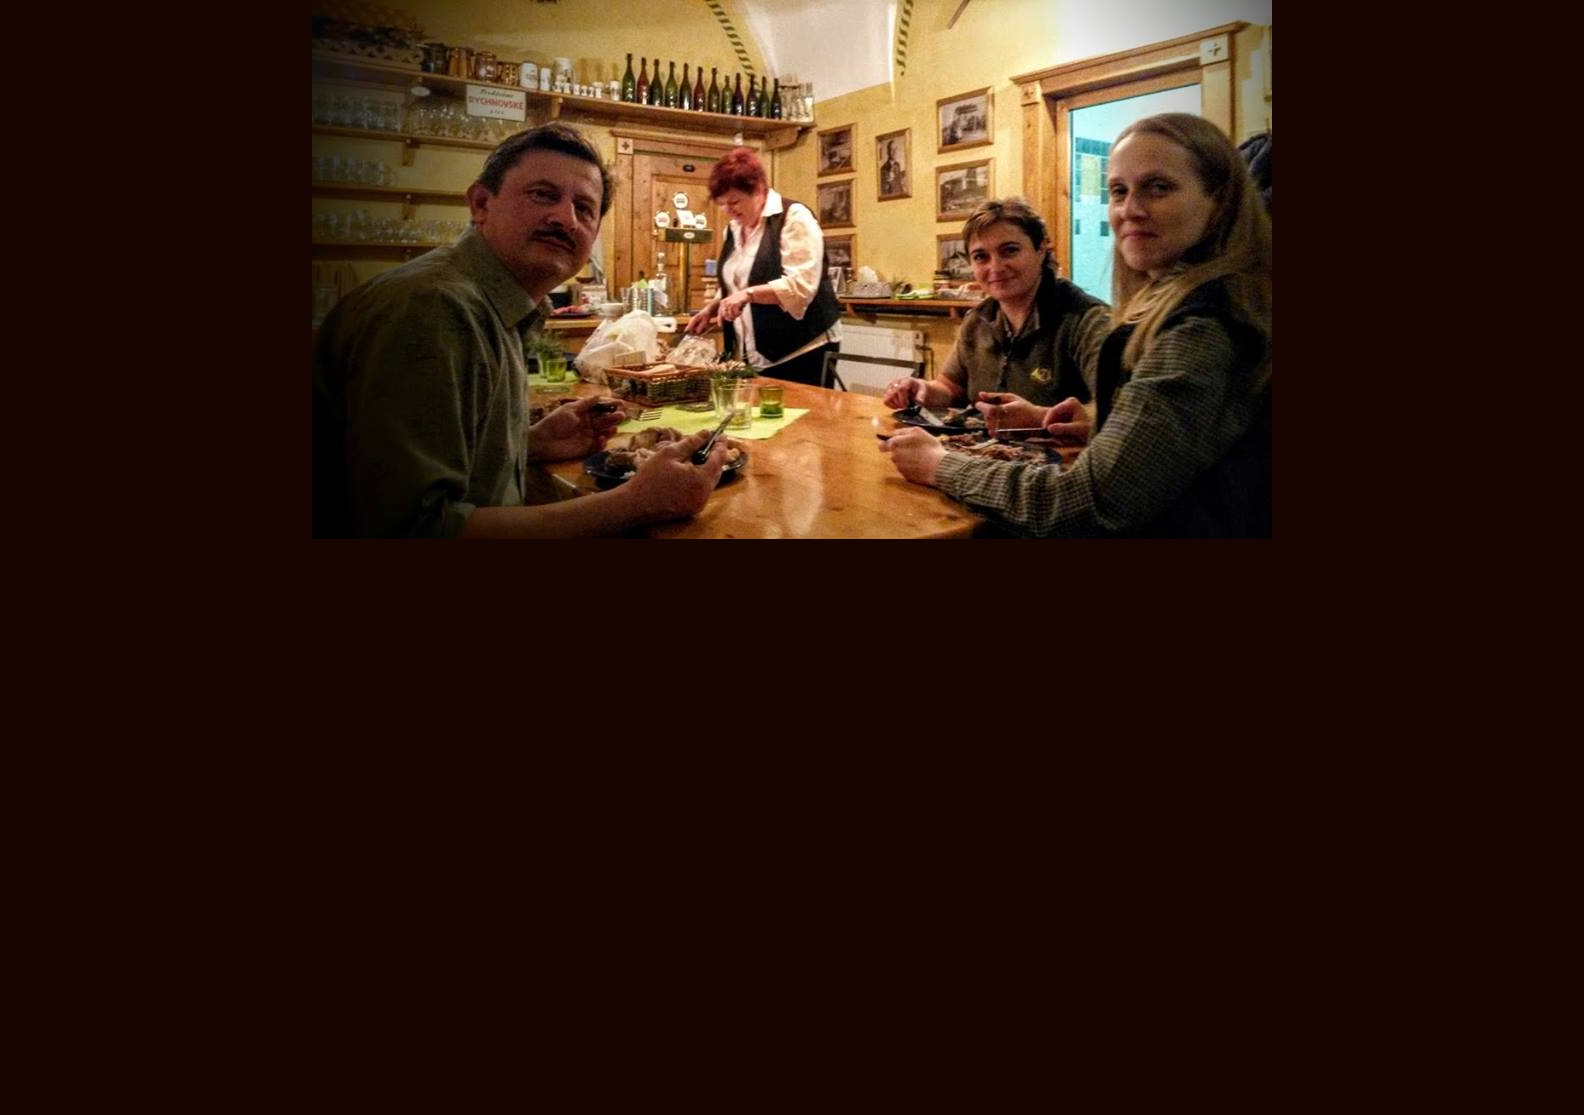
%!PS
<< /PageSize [1584 1115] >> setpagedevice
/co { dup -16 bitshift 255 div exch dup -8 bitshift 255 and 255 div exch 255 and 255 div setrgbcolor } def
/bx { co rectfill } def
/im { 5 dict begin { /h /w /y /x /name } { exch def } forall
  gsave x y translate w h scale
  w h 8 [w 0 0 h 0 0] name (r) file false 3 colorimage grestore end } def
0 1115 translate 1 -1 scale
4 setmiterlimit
0 0 1584 1115 16#180400 bx
(media/1.raw) 312 0 960 539 im
showpage
